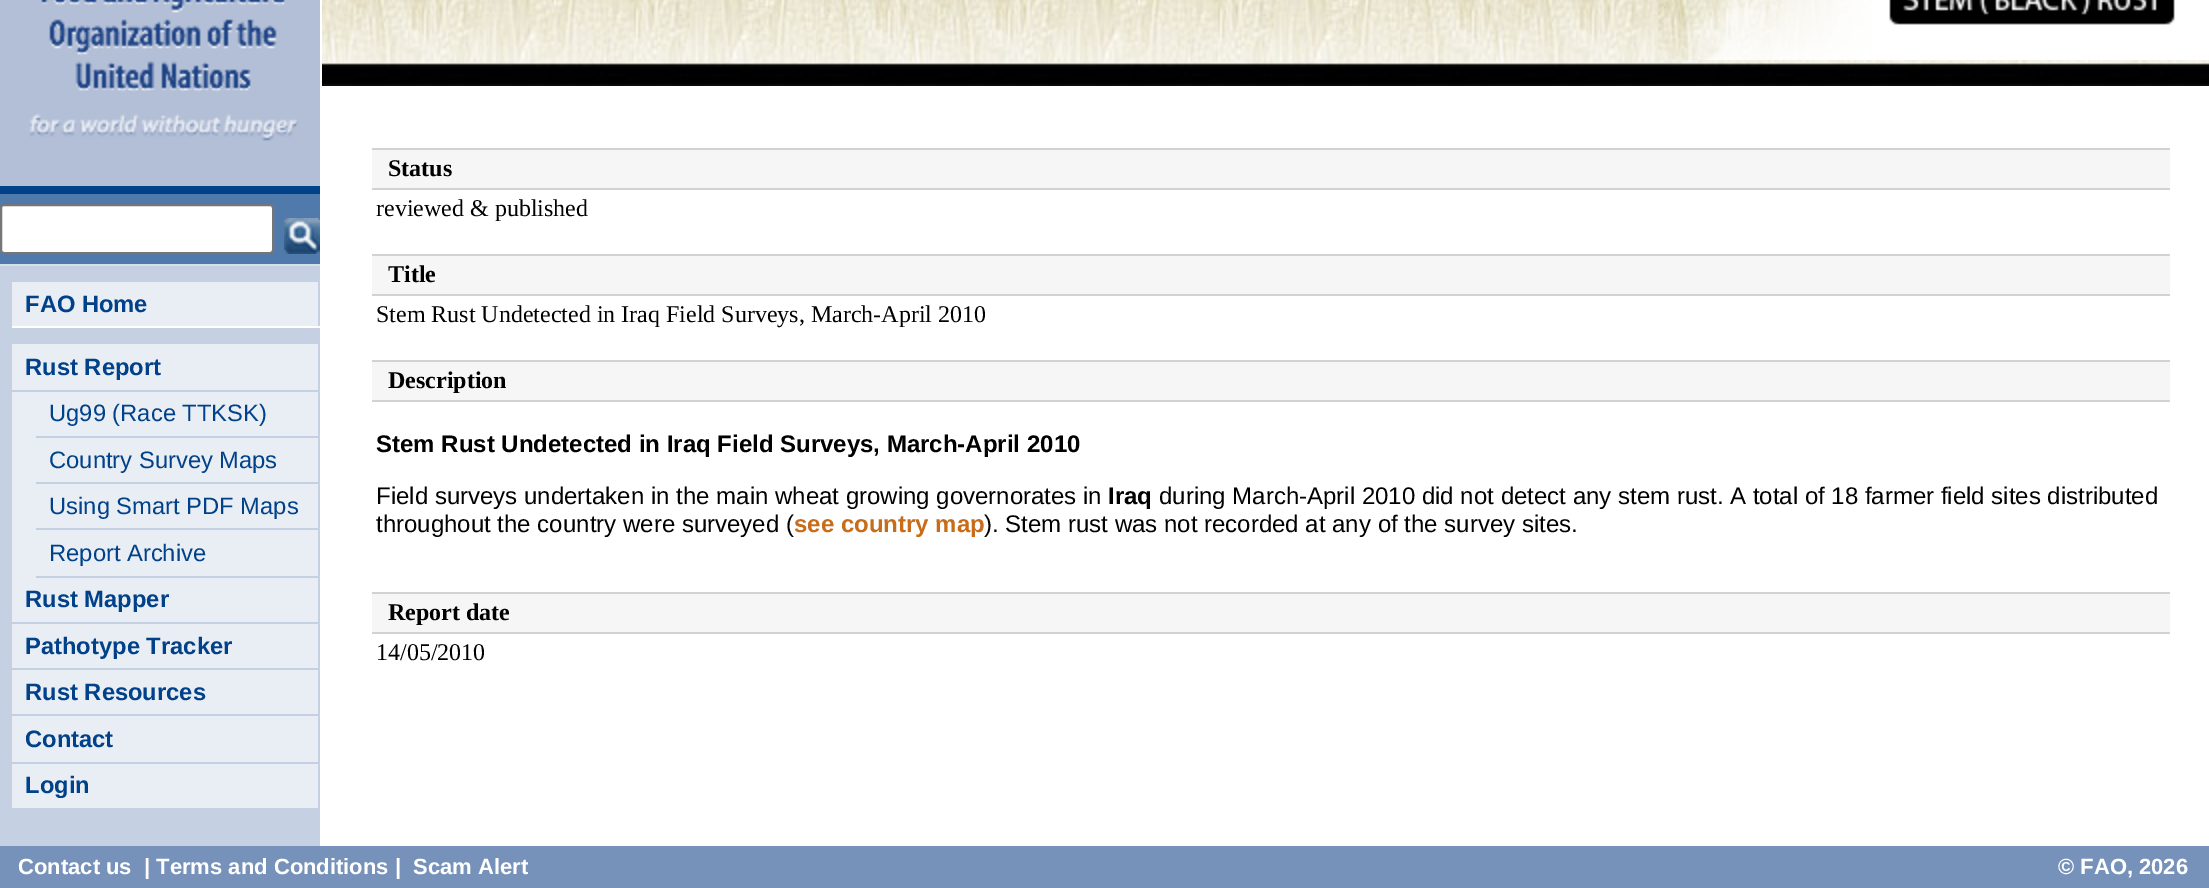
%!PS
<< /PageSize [2209 888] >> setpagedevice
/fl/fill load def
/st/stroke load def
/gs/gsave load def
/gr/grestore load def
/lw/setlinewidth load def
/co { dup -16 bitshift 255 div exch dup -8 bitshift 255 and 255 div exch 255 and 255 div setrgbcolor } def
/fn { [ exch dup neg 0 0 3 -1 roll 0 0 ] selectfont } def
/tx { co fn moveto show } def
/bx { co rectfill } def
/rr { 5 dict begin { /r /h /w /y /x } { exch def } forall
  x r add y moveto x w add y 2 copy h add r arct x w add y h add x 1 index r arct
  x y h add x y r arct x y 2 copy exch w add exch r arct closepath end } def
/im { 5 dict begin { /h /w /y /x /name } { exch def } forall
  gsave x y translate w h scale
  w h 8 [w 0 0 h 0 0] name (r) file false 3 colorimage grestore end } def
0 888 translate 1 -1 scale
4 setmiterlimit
0 0 2209 888 16#C5D1E2 bx
320 0 2 846 16#FFFFFF bx
(media/1.raw) 0 0 320 186 im
0 194 320 70 16#5079AC bx
0 186 320 8 16#00418A bx
0 264 320 2 16#D7DFEA bx
16#FFFFFF co
1 205 272 48 3 rr gs fl gr
16#767676 co
2 lw
st
(media/2.raw) 284 218 36 36 im
12 326 308 2 16#FFFFFF bx
12 282 306 44 16#E9EEF4 bx
12 344 306 46 16#E9EEF4 bx
12 392 306 230 16#E9EEF4 bx
36 436 284 2 16#C5D1E2 bx
36 482 284 2 16#C5D1E2 bx
36 528 284 2 16#C5D1E2 bx
36 576 284 2 16#C5D1E2 bx
12 624 306 44 16#E9EEF4 bx
12 670 306 44 16#E9EEF4 bx
12 716 306 46 16#E9EEF4 bx
12 764 306 44 16#E9EEF4 bx
322 86 1887 760 16#FFFFFF bx
(media/3.raw) 322 0 1887 86 im
(media/4.raw) 1658 0 551 60 im
372 150 1798 38 16#F6F6F6 bx
372 148 1798 2 16#D2D2D2 bx
372 188 1798 2 16#D2D2D2 bx
372 256 1798 38 16#F6F6F6 bx
372 254 1798 2 16#D2D2D2 bx
372 294 1798 2 16#D2D2D2 bx
372 362 1798 38 16#F6F6F6 bx
372 360 1798 2 16#D2D2D2 bx
372 400 1798 2 16#D2D2D2 bx
372 594 1798 38 16#F6F6F6 bx
372 592 1798 2 16#D2D2D2 bx
372 632 1798 2 16#D2D2D2 bx
0 846 2209 42 16#7792BA bx
(FAO Home) 25 312 /LiberationSans-Bold 23.75 16#00418A tx
(Rust Report) 25 375 /LiberationSans-Bold 23.75 16#00418A tx
(Ug99 \(Race TTKSK\)) 49 421 /LiberationSans-Regular 23.75 16#00418A tx
(Country Survey Maps) 49 468 /LiberationSans-Regular 23.75 16#00418A tx
(Using Smart PDF Maps) 49 514 /LiberationSans-Regular 23.75 16#00418A tx
(Report Archive) 49 561 /LiberationSans-Regular 23.75 16#00418A tx
(Rust Mapper) 25 607 /LiberationSans-Bold 23.75 16#00418A tx
(Pathotype Tracker) 25 654 /LiberationSans-Bold 23.75 16#00418A tx
(Rust Resources) 25 700 /LiberationSans-Bold 23.75 16#00418A tx
(Contact) 25 747 /LiberationSans-Bold 23.75 16#00418A tx
(Login) 25 793 /LiberationSans-Bold 23.75 16#00418A tx
(Status) 388 176 /LiberationSerif-Bold 24 16#000000 tx
(reviewed & published) 376 216 /LiberationSerif-Regular 24 16#000000 tx
(Title) 388 282 /LiberationSerif-Bold 24 16#000000 tx
(Stem Rust Undetected in Iraq Field Surveys, March-April 2010) 376 322 /LiberationSerif-Regular 24 16#000000 tx
(Description) 388 388 /LiberationSerif-Bold 24 16#000000 tx
(Stem Rust Undetected in Iraq Field Surveys, March-April 2010) 376 452 /LiberationSans-Bold 24 16#000000 tx
(Field surveys undertaken in the main wheat growing governorates in) 376 504 /LiberationSans-Regular 24 16#000000 tx
(Iraq) 1108 504 /LiberationSans-Bold 24 16#000000 tx
(during March-April 2010 did not detect any stem rust. A total of 18 farmer field sites distributed) 1159 504 /LiberationSans-Regular 24 16#000000 tx
(throughout the country were surveyed \() 376 532 /LiberationSans-Regular 24 16#000000 tx
(see country map) 794 532 /LiberationSans-Bold 24 16#C86C1A tx
(\). Stem rust was not recorded at any of the survey sites.) 984 532 /LiberationSans-Regular 24 16#000000 tx
(Report date) 388 620 /LiberationSerif-Bold 24 16#000000 tx
(14/05/2010) 376 660 /LiberationSerif-Regular 24 16#000000 tx
(Contact us) 18 874 /LiberationSans-Bold 22 16#FFFFFF tx
(| Terms and Conditions |) 144 874 /LiberationSans-Bold 22 16#FFFFFF tx
(Scam Alert) 413 874 /LiberationSans-Bold 22 16#FFFFFF tx
(© FAO, 2026) 2058 874 /LiberationSans-Bold 22 16#FFFFFF tx
showpage
